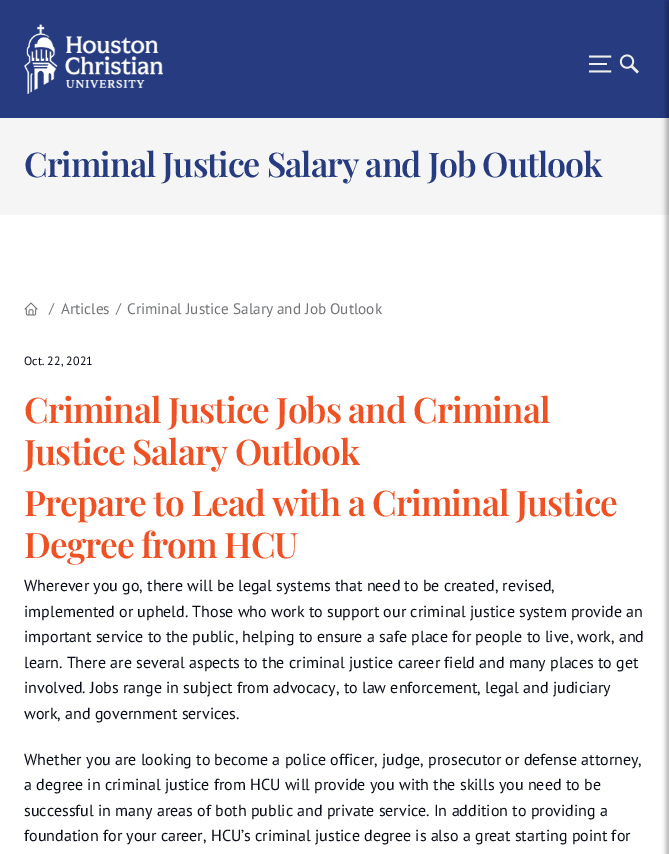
%!PS
<< /PageSize [669 854] /PageUsesTransparency true >> setpagedevice
/mt/moveto load def
/co { dup -16 bitshift 255 div exch dup -8 bitshift 255 and 255 div exch 255 and 255 div setrgbcolor } def
/fn { [ exch dup neg 0 0 3 -1 roll 0 0 ] selectfont } def
/tx { co fn moveto show } def
/bx { co rectfill } def
/al { dup .setfillconstantalpha .setstrokeconstantalpha } def
/rr { 5 dict begin { /r /h /w /y /x } { exch def } forall
  x r add y moveto x w add y 2 copy h add r arct x w add y h add x 1 index r arct
  x y h add x y r arct x y 2 copy exch w add exch r arct closepath end } def
/sh { 12 dict begin { /a /b /q /h /w /y /x } { exch def } forall gsave /was 0 def
  9 -2 -9 { dup b mul 4 div /e exch def 1 sub .425 mul 2.718 exch exp 1 add a .99 .min exch div /now exch def
    1 1 now sub 1 was sub div sub al /was now def
    w h .min e 2 mul add 0 gt { x e sub y e sub w e 2 mul add h e 2 mul add
      q e add b .6 mul add w h .min 2 div e add .min 0 .max rr fill } if } for grestore end } def
/im { 5 dict begin { /h /w /y /x /name } { exch def } forall
  gsave x y translate w h scale
  w h 8 [w 0 0 h 0 0] name (r) file false 3 colorimage grestore end } def
0 .pushpdf14devicefilter
0 854 translate 1 -1 scale
4 setmiterlimit
0 0 669 854 16#FFFFFF bx
0 0 669 118 16#263B80 bx
(media/1.raw) 24 24 139 70 im
(media/2.raw) 589 54 50 20 im
0 118 669 97 16#F5F5F5 bx
(media/3.raw) 24 302 14 14 im
16#000000 co
666 1 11 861 0 2.5 .3 sh
/PlayfairDisplay-SemiBold 34 fn
16#263B80 co
24 177 mt -1 0 (Criminal Justice Salary and Job Outlook) ashow
(/) 49 313 /PTSans-Regular 14 16#737578 tx
(Articles) 61 314 /PTSans-Regular 15.25 16#737578 tx
(/) 116 313 /PTSans-Regular 14 16#737578 tx
(Criminal Justice Salary and Job Outlook) 127 314 /PTSans-Regular 15.25 16#737578 tx
(Oct. 22, 2021) 24 365 /PTSans-Regular 12 16#0A0D1A tx
/PlayfairDisplay-SemiBold 35.25 fn
16#F05123 co
24 423 mt -1 0 (Criminal Justice Jobs and Criminal) ashow
24 465 mt -1 0 (Justice Salary Outlook) ashow
24 516 mt -1 0 (Prepare to Lead with a Criminal Justice) ashow
24 558 mt -1 0 (Degree from HCU) ashow
(Wherever you go, there will be legal systems that need to be created, revised,) 24 591 /PTSans-Regular 16 16#0A0D1A tx
(implemented or upheld. Those who work to support our criminal justice system provide an) 24 617 /PTSans-Regular 16 16#0A0D1A tx
(important service to the public, helping to ensure a safe place for people to live, work, and) 24 642 /PTSans-Regular 16 16#0A0D1A tx
(learn. There are several aspects to the criminal justice career field and many places to get) 24 668 /PTSans-Regular 16 16#0A0D1A tx
(involved. Jobs range in subject from advocacy, to law enforcement, legal and judiciary) 24 693 /PTSans-Regular 16 16#0A0D1A tx
(work, and government services.) 24 719 /PTSans-Regular 16 16#0A0D1A tx
(Whether you are looking to become a police officer, judge, prosecutor or defense attorney,) 24 765 /PTSans-Regular 16 16#0A0D1A tx
(a degree in criminal justice from HCU will provide you with the skills you need to be) 24 790 /PTSans-Regular 16 16#0A0D1A tx
(successful in many areas of both public and private service. In addition to providing a) 24 816 /PTSans-Regular 16 16#0A0D1A tx
(foundation for your career, HCU’s criminal justice degree is also a great starting point for) 24 841 /PTSans-Regular 16 16#0A0D1A tx
.poppdf14devicefilter showpage
